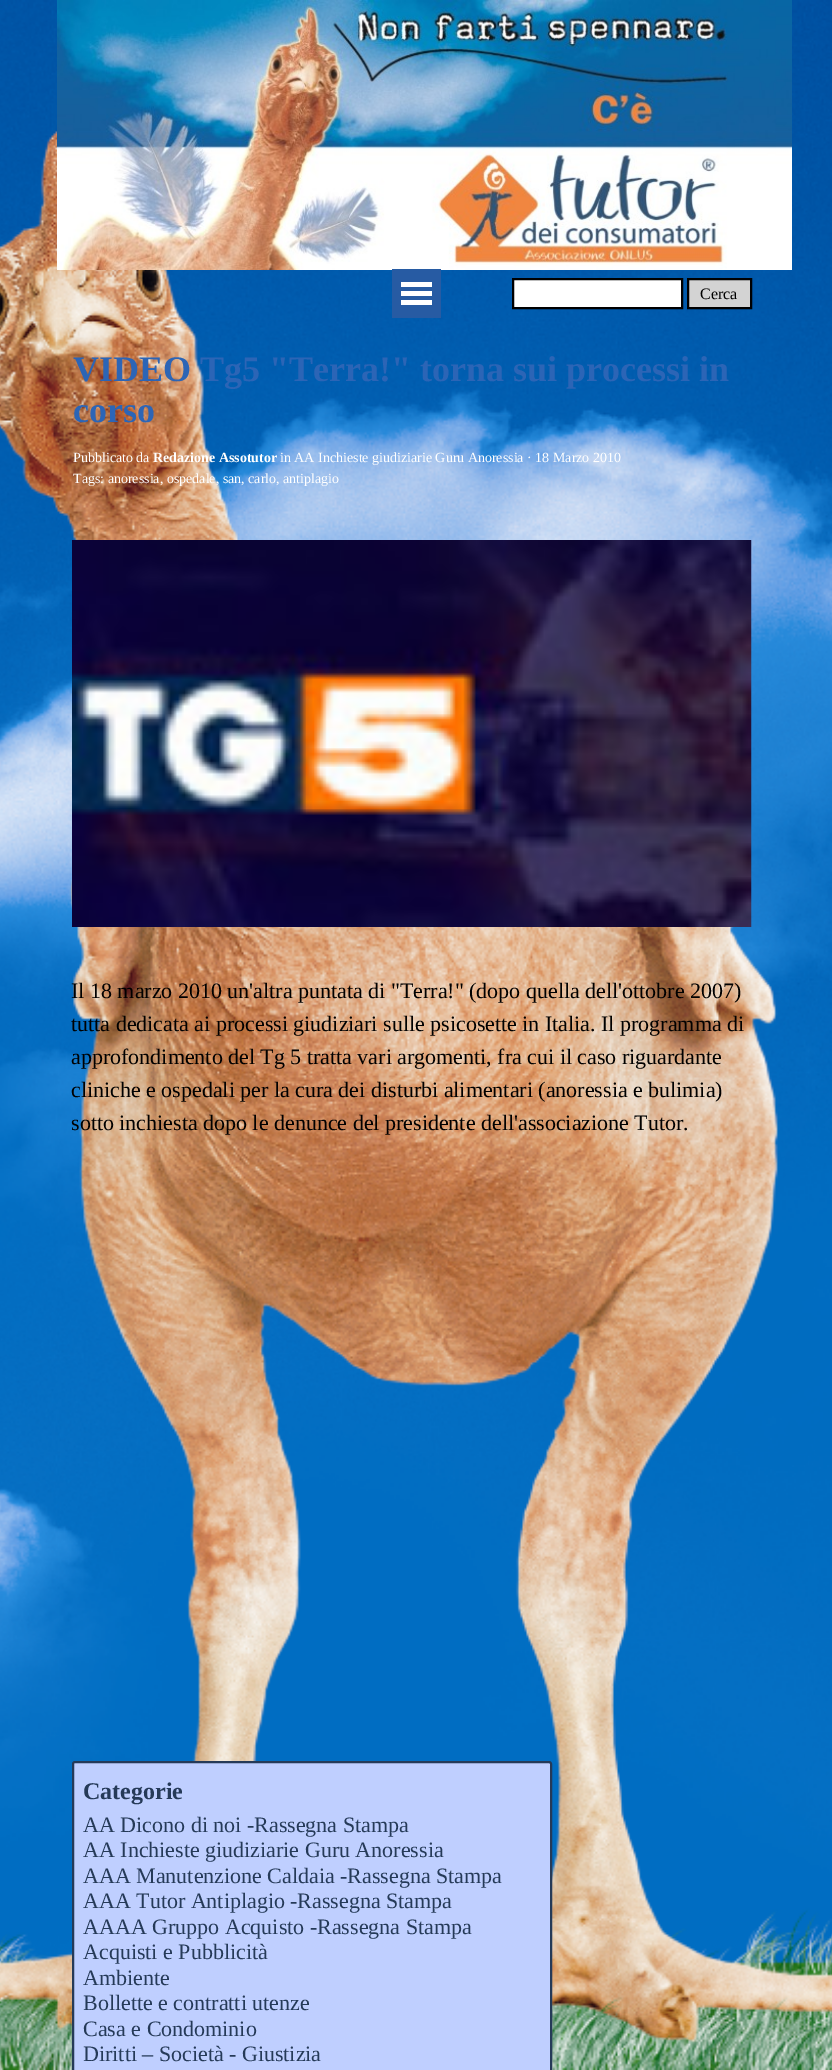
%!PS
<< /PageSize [832 2070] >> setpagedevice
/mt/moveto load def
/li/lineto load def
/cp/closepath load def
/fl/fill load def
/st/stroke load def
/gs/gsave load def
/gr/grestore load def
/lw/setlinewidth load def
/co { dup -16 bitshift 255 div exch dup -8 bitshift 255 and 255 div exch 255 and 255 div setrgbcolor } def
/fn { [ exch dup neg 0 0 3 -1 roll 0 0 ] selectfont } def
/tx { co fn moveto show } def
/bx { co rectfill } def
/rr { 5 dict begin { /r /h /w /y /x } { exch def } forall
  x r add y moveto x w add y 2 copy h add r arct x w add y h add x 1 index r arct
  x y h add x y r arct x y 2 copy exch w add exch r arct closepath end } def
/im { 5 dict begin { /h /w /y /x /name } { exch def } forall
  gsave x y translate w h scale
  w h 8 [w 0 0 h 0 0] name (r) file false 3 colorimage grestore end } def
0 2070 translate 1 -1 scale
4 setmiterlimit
0 0 832 2070 16#FFFFFF bx
(media/1.raw) 0 0 832 2070 im
(media/2.raw) 57 0 735 270 im
392 269 49 49 16#275BA3 bx
401 282 31 5 16#FFFFFF bx
401 291 31 5 16#FFFFFF bx
401 300 31 5 16#FFFFFF bx
513 279 mt 682 279 li 682 308 li 513 308 li cp gs fl gr
16#000000 co
2 lw
st
16#D3D3D3 co
688 279 mt 751 279 li 751 308 li 688 308 li cp gs fl gr
16#000000 co
st
(media/3.raw) 72 540 680 387 im
16#BFCFFF co
73 1762 478 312 2 rr gs fl gr
16#253A58 co
st
(Cerca) 700 299 /LiberationSerif-Regular 16 16#000000 tx
(VIDEO Tg5 "Terra!" torna sui processi in) 73 381 /LiberationSerif-Bold 36 16#2C65B6 tx
(corso) 73 422 /LiberationSerif-Bold 36 16#2C65B6 tx
(Pubblicato da) 73 462 /LiberationSerif-Regular 14 16#FFFFFF tx
(Redazione Assotutor) 153 462 /LiberationSerif-Bold 14 16#FFFFFF tx
(in AA Inchieste giudiziarie Guru Anoressia · 18 Marzo 2010) 280 462 /LiberationSerif-Regular 14 16#FFFFFF tx
(Tags: anoressia, ospedale, san, carlo, antiplagio) 73 483 /LiberationSerif-Regular 14 16#FFFFFF tx
(Il 18 marzo 2010 un'altra puntata di "Terra!" \(dopo quella dell'ottobre 2007\)) 71 998 /LiberationSerif-Regular 22 16#000000 tx
(tutta dedicata ai processi giudiziari sulle psicosette in Italia. Il programma di) 71 1031 /LiberationSerif-Regular 22 16#000000 tx
(approfondimento del Tg 5 tratta vari argomenti, fra cui il caso riguardante) 71 1064 /LiberationSerif-Regular 22 16#000000 tx
(cliniche e ospedali per la cura dei disturbi alimentari \(anoressia e bulimia\)) 71 1097 /LiberationSerif-Regular 22 16#000000 tx
(sotto inchiesta dopo le denunce del presidente dell'associazione Tutor.) 71 1130 /LiberationSerif-Regular 22 16#000000 tx
(Categorie) 83 1799 /LiberationSerif-Bold 24 16#253A58 tx
(AA Dicono di noi -Rassegna Stampa) 83 1832 /LiberationSerif-Regular 22 16#253A58 tx
(AA Inchieste giudiziarie Guru Anoressia) 83 1857 /LiberationSerif-Regular 22 16#253A58 tx
(AAA Manutenzione Caldaia -Rassegna Stampa) 83 1883 /LiberationSerif-Regular 22 16#253A58 tx
(AAA Tutor Antiplagio -Rassegna Stampa) 83 1908 /LiberationSerif-Regular 22 16#253A58 tx
(AAAA Gruppo Acquisto -Rassegna Stampa) 83 1934 /LiberationSerif-Regular 22 16#253A58 tx
(Acquisti e Pubblicità) 83 1959 /LiberationSerif-Regular 22 16#253A58 tx
(Ambiente) 83 1985 /LiberationSerif-Regular 22 16#253A58 tx
(Bollette e contratti utenze) 83 2010 /LiberationSerif-Regular 22 16#253A58 tx
(Casa e Condominio) 83 2036 /LiberationSerif-Regular 22 16#253A58 tx
(Diritti – Società - Giustizia) 83 2061 /LiberationSerif-Regular 22 16#253A58 tx
showpage
